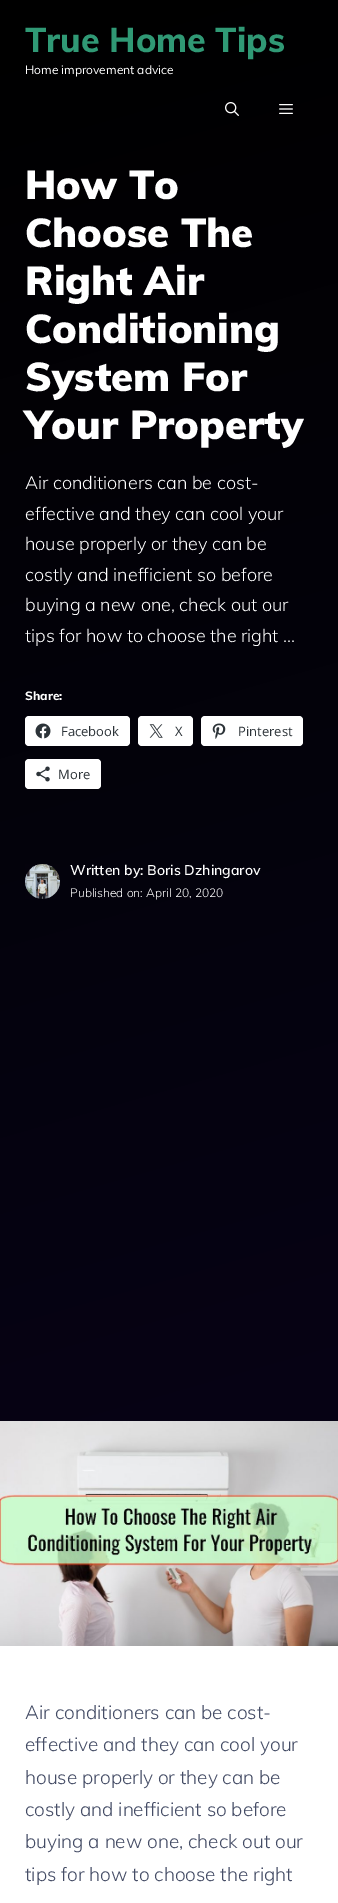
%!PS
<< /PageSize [338 1903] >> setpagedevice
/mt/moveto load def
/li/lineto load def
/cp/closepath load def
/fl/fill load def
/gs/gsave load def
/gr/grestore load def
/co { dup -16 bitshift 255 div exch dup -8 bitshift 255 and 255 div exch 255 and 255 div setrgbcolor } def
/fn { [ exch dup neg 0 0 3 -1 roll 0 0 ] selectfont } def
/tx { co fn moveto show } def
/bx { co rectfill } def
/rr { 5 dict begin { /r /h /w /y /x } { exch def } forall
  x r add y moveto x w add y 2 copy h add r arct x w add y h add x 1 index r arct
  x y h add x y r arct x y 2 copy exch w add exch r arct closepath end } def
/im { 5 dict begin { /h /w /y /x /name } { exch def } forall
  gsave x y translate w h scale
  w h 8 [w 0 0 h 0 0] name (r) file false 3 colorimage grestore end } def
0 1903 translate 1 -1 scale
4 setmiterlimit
0 0 338 1903 16#FFFFFF bx
gs 0 0 mt 338 0 li 338 1421 li 0 1421 li cp clip newpath
<< /ShadingType 2 /ColorSpace /DeviceRGB /Coords [-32 9 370 1412] /Extend [true true] /Function << /FunctionType 2 /Domain [0 1] /C0 [0 0 0] /C1 [.027 .012 .082] /N 1 >> >> shfill gr
(media/1.raw) 225 102 14 14 im
(media/2.raw) 279 104 14 10 im
25 716 105 30 4 rr fl
(media/3.raw) 35 723 16 16 im
138 716 55 30 4 rr fl
(media/4.raw) 149 724 14 14 im
201 716 102 30 4 rr fl
(media/5.raw) 212 723 14 16 im
25 759 76 30 4 rr fl
(media/6.raw) 36 766 14 16 im
(media/7.raw) 25 864 35 35 im
(media/8.raw) 0 1421 338 225 im
(True Home Tips) 25 52 /Muli-ExtraBold 34 16#309975 tx
(Home improvement advice) 25 74 /Muli-Regular 12 16#FFFFFF tx
(How To) 25 199 /Muli-Black 40 16#FFFFFF tx
(Choose The) 25 247 /Muli-Black 40 16#FFFFFF tx
(Right Air) 25 295 /Muli-Black 40 16#FFFFFF tx
(Conditioning) 25 343 /Muli-Black 40 16#FFFFFF tx
(System For) 25 391 /Muli-Black 40 16#FFFFFF tx
(Your Property) 25 439 /Muli-Black 40 16#FFFFFF tx
(Air conditioners can be cost-) 25 489 /Muli-Light 18 16#FFFFFF tx
(effective and they can cool your) 25 520 /Muli-Light 18 16#FFFFFF tx
(house properly or they can be) 25 550 /Muli-Light 18 16#FFFFFF tx
(costly and inefficient so before) 25 581 /Muli-Light 18 16#FFFFFF tx
(buying a new one, check out our) 25 611 /Muli-Light 18 16#FFFFFF tx
(tips for how to choose the right …) 25 642 /Muli-Light 18 16#FFFFFF tx
(Share:) 25 700 /Muli-ExtraBold 12 16#FFFFFF tx
(Facebook) 61 736 /OpenSans-Regular 13 16#2C3338 tx
(X) 175 736 /OpenSans-Regular 13 16#2C3338 tx
(Pinterest) 238 736 /OpenSans-Regular 13 16#2C3338 tx
(More) 58 779 /OpenSans-Regular 13 16#2C3338 tx
(Written by: Boris Dzhingarov) 70 875 /Muli-SemiBold 14 16#FFFFFF tx
(Published on: April 20, 2020) 70 897 /Muli-Light 12 16#FFFFFF tx
(Air conditioners can be cost-) 25 1719 /Muli-Light 19 16#454D66 tx
(effective and they can cool your) 25 1751 /Muli-Light 19 16#454D66 tx
(house properly or they can be) 25 1784 /Muli-Light 19 16#454D66 tx
(costly and inefficient so before) 25 1816 /Muli-Light 19 16#454D66 tx
(buying a new one, check out our) 25 1848 /Muli-Light 19 16#454D66 tx
(tips for how to choose the right) 25 1881 /Muli-Light 19 16#454D66 tx
showpage
